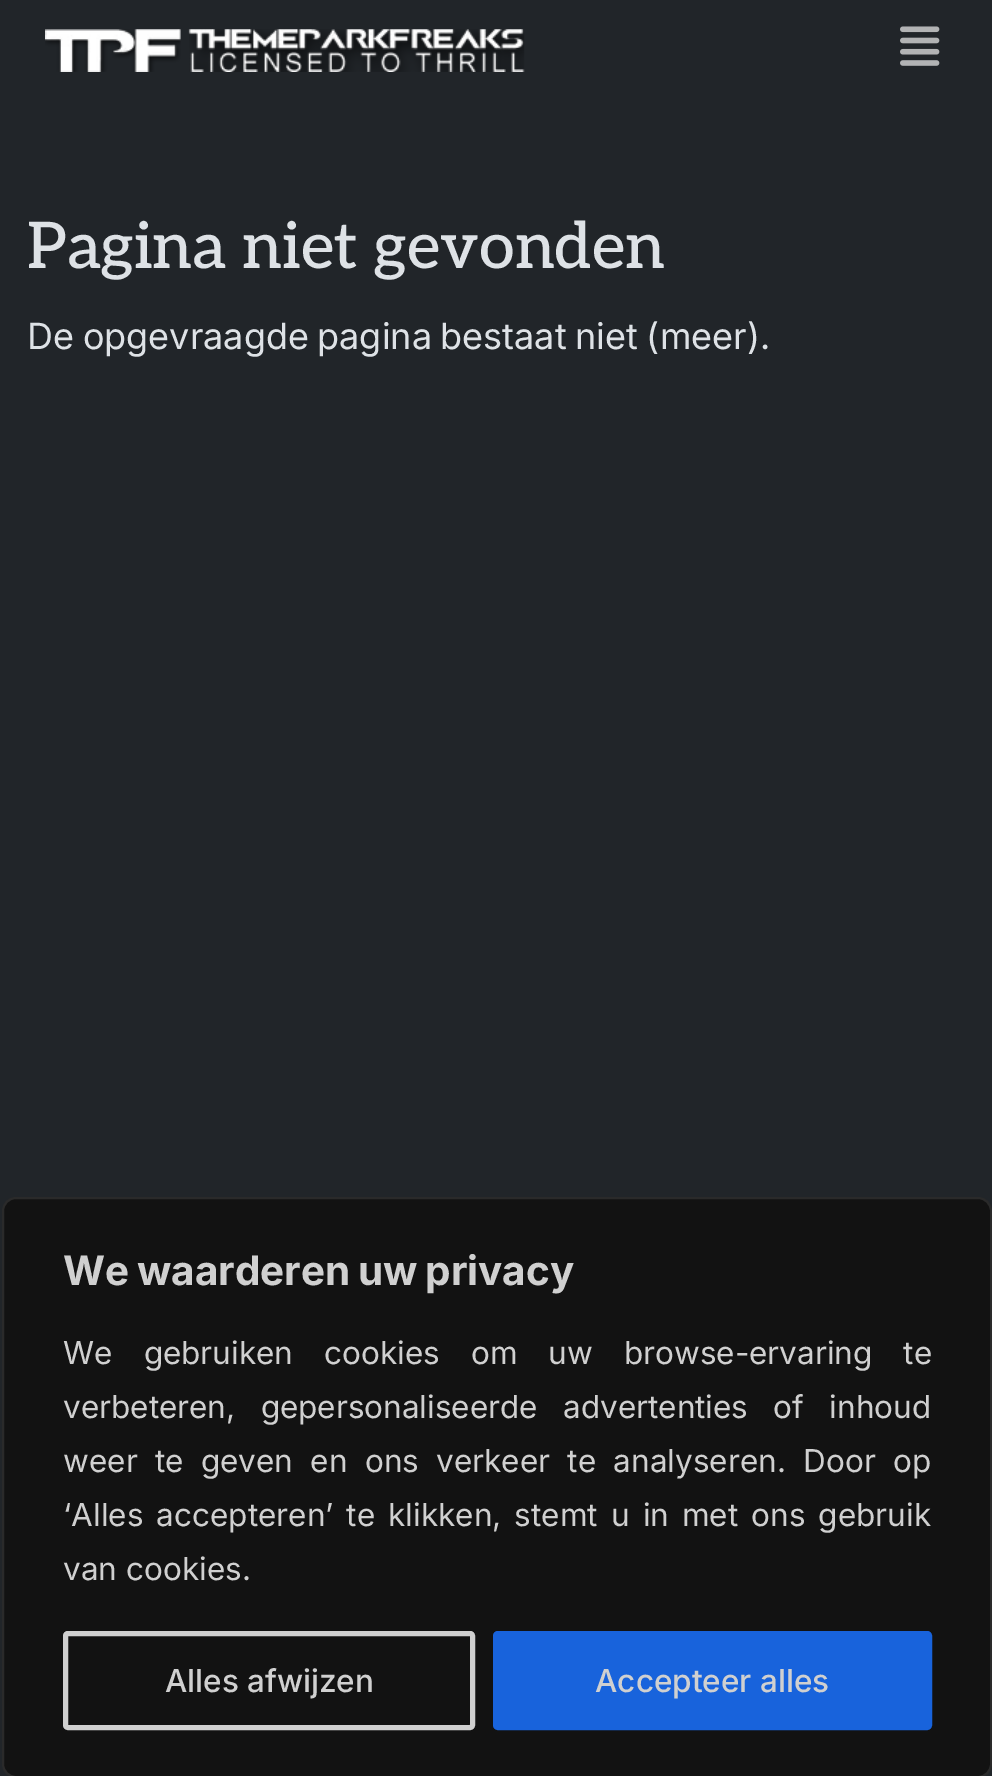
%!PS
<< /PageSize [992 1776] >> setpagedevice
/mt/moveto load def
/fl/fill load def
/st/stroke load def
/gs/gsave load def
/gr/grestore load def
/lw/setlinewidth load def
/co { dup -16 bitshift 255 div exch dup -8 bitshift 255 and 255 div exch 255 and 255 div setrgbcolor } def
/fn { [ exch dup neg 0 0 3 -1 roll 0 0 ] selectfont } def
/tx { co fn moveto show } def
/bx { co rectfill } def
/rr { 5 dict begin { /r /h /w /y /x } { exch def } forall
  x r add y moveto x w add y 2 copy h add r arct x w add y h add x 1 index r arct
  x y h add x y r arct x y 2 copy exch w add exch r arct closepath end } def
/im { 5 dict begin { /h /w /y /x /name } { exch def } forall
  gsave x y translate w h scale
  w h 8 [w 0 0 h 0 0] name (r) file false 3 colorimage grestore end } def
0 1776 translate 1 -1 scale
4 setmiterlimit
0 0 992 1776 16#212529 bx
(media/1.raw) 45 29 480 43 im
(media/2.raw) 900 26 40 40 im
16#121212 co
3 1198 988 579 13 rr gs fl gr
16#2A2A2A co
2 lw
st
16#D0D0D0 co
5 lw
65.5 1633.5 407 94 2.5 rr st
16#1863DC co
495.5 1633.5 434 94 2.5 rr gs fl gr
st
(Pagina niet gevonden) 27 268 /Aleo-Medium 64.4 16#DEE2E6 tx
/Inter-Regular 36 fn
27 349 mt -1.5 0 32 (De opgevraagde pagina bestaat niet \(meer\).) widthshow
/Inter-Bold 40.5 fn
16#D0D0D0 co
63 1285 mt -2 0 32 (We waarderen uw privacy) widthshow
/Inter-Regular 31.5 fn
63 1364 mt 22.25 0 32 (We gebruiken cookies om uw browse-ervaring te) widthshow
63 1418 mt 16.5 0 32 (verbeteren, gepersonaliseerde advertenties of inhoud) widthshow
63 1472 mt 8.5 0 32 (weer te geven en ons verkeer te analyseren. Door op) widthshow
63 1526 mt 4.25 0 32 (‘Alles accepteren’ te klikken, stemt u in met ons gebruik) widthshow
(van cookies.) 63 1580 /Inter-Regular 31.5 16#D0D0D0 tx
(Alles afwijzen) 165 1692 /Inter-Medium 31.5 16#D0D0D0 tx
(Accepteer alles) 595 1692 /Inter-Medium 31.5 16#D0D0D0 tx
showpage
